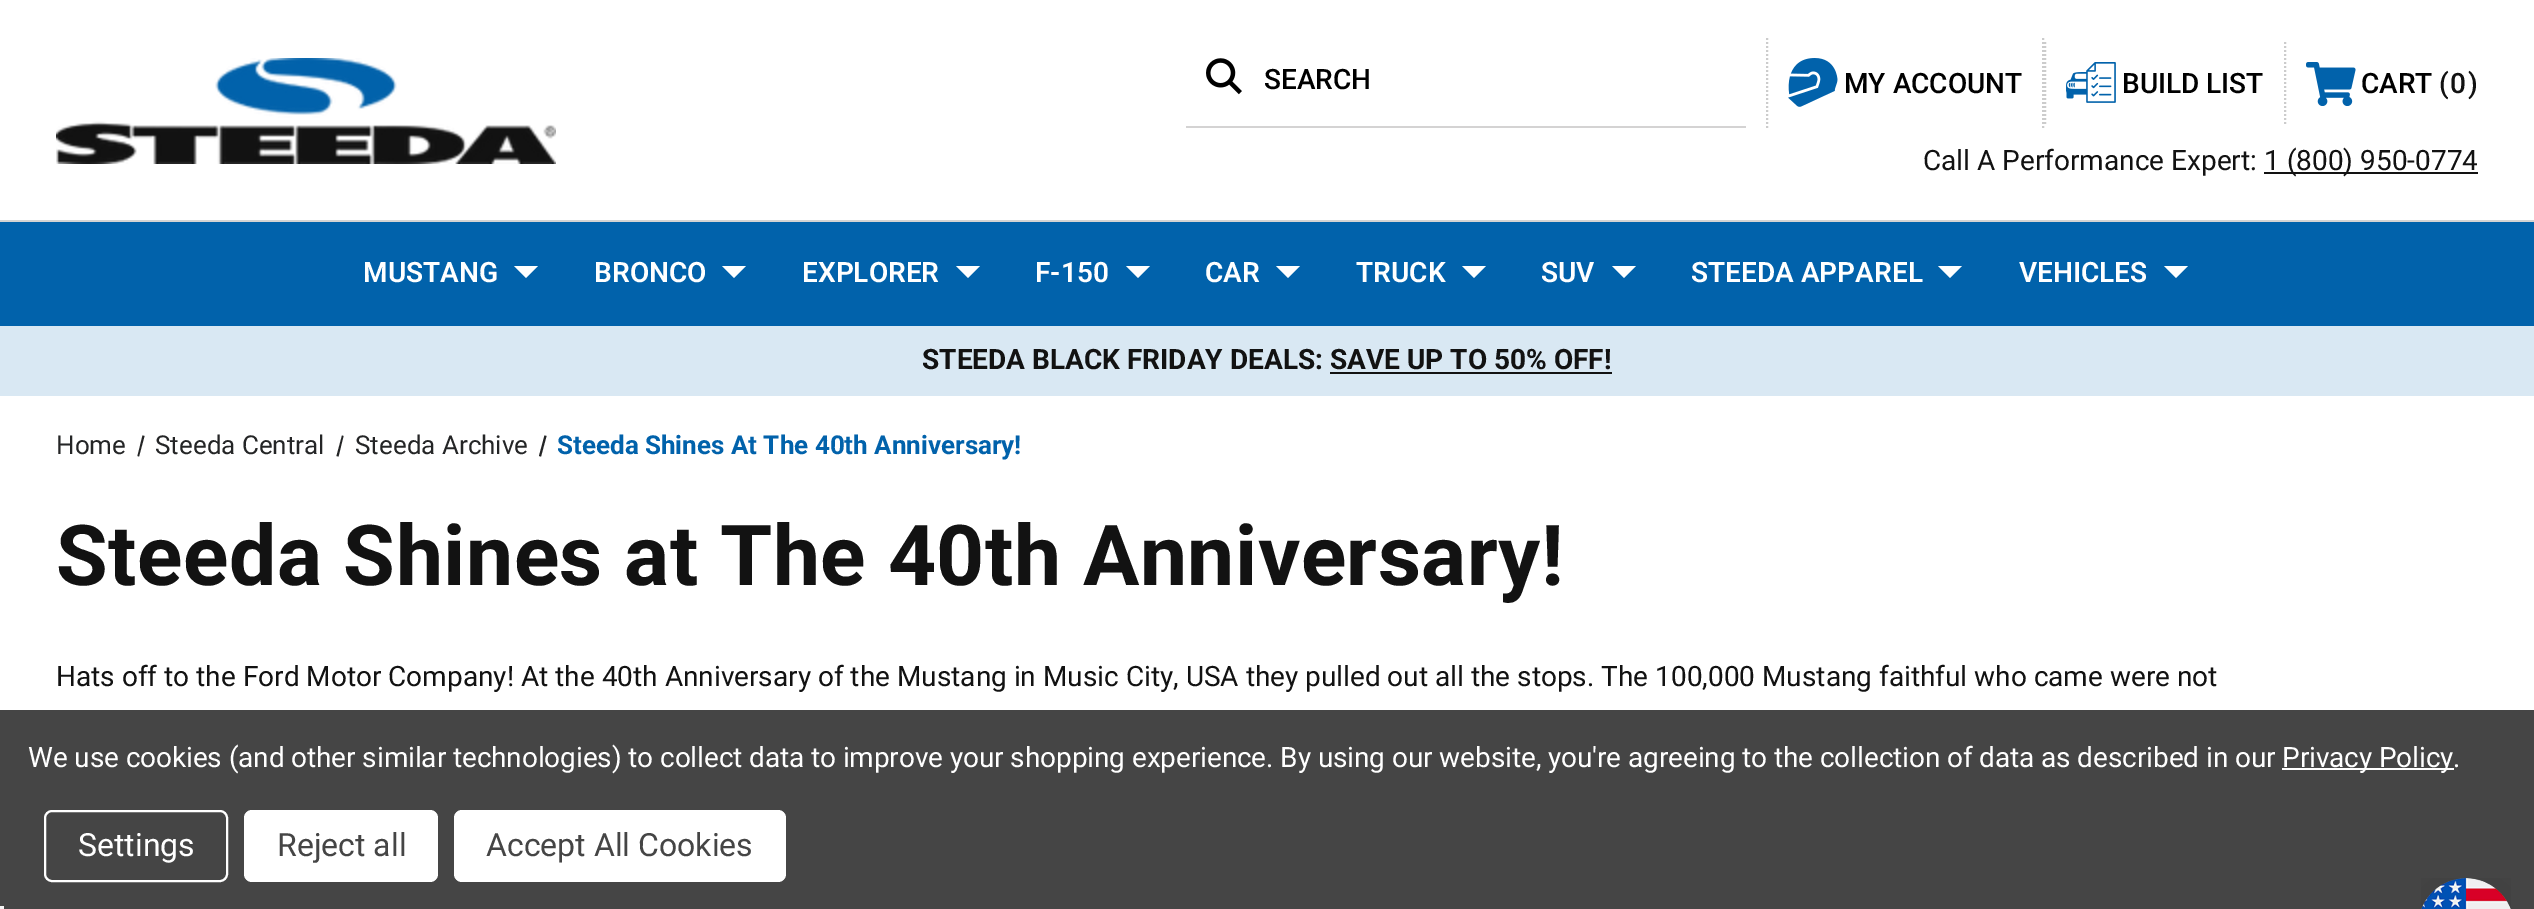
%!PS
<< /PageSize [2534 909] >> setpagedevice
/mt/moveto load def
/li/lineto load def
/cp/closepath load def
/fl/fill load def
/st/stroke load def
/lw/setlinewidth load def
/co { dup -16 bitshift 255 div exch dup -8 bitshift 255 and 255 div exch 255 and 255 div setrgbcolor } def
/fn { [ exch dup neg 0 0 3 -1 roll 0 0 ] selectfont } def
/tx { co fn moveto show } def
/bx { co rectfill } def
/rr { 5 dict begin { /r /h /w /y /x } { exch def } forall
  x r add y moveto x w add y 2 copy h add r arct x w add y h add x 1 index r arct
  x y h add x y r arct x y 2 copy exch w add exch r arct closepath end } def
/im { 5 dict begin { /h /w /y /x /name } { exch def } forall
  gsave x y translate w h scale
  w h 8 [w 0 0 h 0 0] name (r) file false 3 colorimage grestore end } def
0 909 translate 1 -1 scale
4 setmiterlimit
0 0 2534 909 16#FFFFFF bx
(media/1.raw) 56 58 500 106 im
1186 126 560 2 16#D4D3D3 bx
(media/2.raw) 1206 58 36 37 im
16#CCCCCC co
2 lw
[2 2] 0 setdash
2043 38 mt 2043 128 li st
1767 38 mt 1767 128 li st
(media/3.raw) 1788 58 50 49 im
2285 42 mt 2285 124 li st
2045 42 mt 2045 124 li st
(media/4.raw) 2066 62 50 41 im
(media/5.raw) 2306 62 50 44 im
2264 172 214 2 16#121212 bx
0 222 2534 104 16#0162AB bx
0 220 2534 2 16#D4D3D3 bx
16#FFFFFF co
514 266 mt 526 278 li 538 266 li cp fl
722 266 mt 734 278 li 746 266 li cp fl
956 266 mt 968 278 li 980 266 li cp fl
1126 266 mt 1138 278 li 1150 266 li cp fl
1276 266 mt 1288 278 li 1300 266 li cp fl
1462 266 mt 1474 278 li 1486 266 li cp fl
1612 266 mt 1624 278 li 1636 266 li cp fl
1938 266 mt 1950 278 li 1962 266 li cp fl
2164 266 mt 2176 278 li 2188 266 li cp fl
0 326 2534 70 16#D9E8F3 bx
1330 372 282 2 16#121212 bx
16#242526 co
142.5 435.5 mt 144.5 436 li 139 456.5 li 137.5 456 li cp fl
342 435.5 mt 343.5 436 li 338.5 456.5 li 336.5 456 li cp fl
544.5 435.5 mt 546.5 436 li 541 456.5 li 539 456 li cp fl
0 710 2534 199 16#454545 bx
2282 768 172 2 16#FFFFFF bx
[] 0 setdash
45 811 182 70 7 rr st
244 810 194 72 8 rr fl
454 810 332 72 8 rr fl
0 906 4 3 16#F5F5F5 bx
(media/6.raw) 2421 878 90 31 im
(SEARCH) 1264 89 /Roboto-Medium 28 16#000000 tx
(MY ACCOUNT) 1844 93 /Roboto-Medium 28 16#000000 tx
(BUILD LIST) 2122 93 /Roboto-Medium 28 16#000000 tx
(CART) 2361 93 /Roboto-Medium 28 16#000000 tx
(\() 2439 93 /Roboto-Medium 28 16#121212 tx
(0) 2450 93 /Roboto-Medium 28 16#121212 tx
(\)) 2468 93 /Roboto-Medium 28 16#121212 tx
(Call A Performance Expert:) 1923 170 /Roboto-Regular 28 16#121212 tx
(1 \(800\) 950-0774) 2264 170 /Roboto-Regular 28 16#121212 tx
(MUSTANG) 363 282 /Roboto-SemiBold 28 16#FFFFFF tx
(BRONCO) 594 282 /Roboto-SemiBold 28 16#FFFFFF tx
(EXPLORER) 802 282 /Roboto-SemiBold 28 16#FFFFFF tx
(F-150) 1035 282 /Roboto-SemiBold 28 16#FFFFFF tx
(CAR) 1205 282 /Roboto-SemiBold 28 16#FFFFFF tx
(TRUCK) 1356 282 /Roboto-SemiBold 28 16#FFFFFF tx
(SUV) 1541 282 /Roboto-SemiBold 28 16#FFFFFF tx
(STEEDA APPAREL) 1691 282 /Roboto-SemiBold 28 16#FFFFFF tx
(VEHICLES) 2019 282 /Roboto-SemiBold 28 16#FFFFFF tx
(STEEDA BLACK FRIDAY DEALS: SAVE UP TO 50% OFF!) 922 369 /Roboto-Bold 28 16#121212 tx
(Home) 56 454 /Roboto-Regular 26 16#242526 tx
(Steeda Central) 155 454 /Roboto-Regular 26 16#242526 tx
(Steeda Archive) 355 454 /Roboto-Regular 26 16#242526 tx
(Steeda Shines At The 40th Anniversary!) 557 454 /Roboto-Bold 26 16#0162AB tx
/Roboto-Bold 84 fn
16#121212 co
56 585 mt .5 0 (Steeda Shines at The 40th Anniversary!) ashow
(Hats off to the Ford Motor Company! At the 40th Anniversary of the Mustang in Music City, USA they pulled out all the stops. The 100,000 Mustang faithful who came were not) 56 686 /Roboto-Regular 28 16#121212 tx
16#FFFFFF co
28 767 mt -.1 0 (We use cookies \(and other similar technologies\) to collect data to improve your shopping experience. By using our website, you're agreeing to the collection of data as described in our) ashow
2282 767 mt -.1 0 (Privacy Policy.) ashow
(Settings) 78 856 /Roboto-Regular 32 16#FFFFFF tx
(Reject all) 277 856 /Roboto-Regular 32 16#454545 tx
(Accept All Cookies) 486 856 /Roboto-Regular 32 16#454545 tx
showpage
